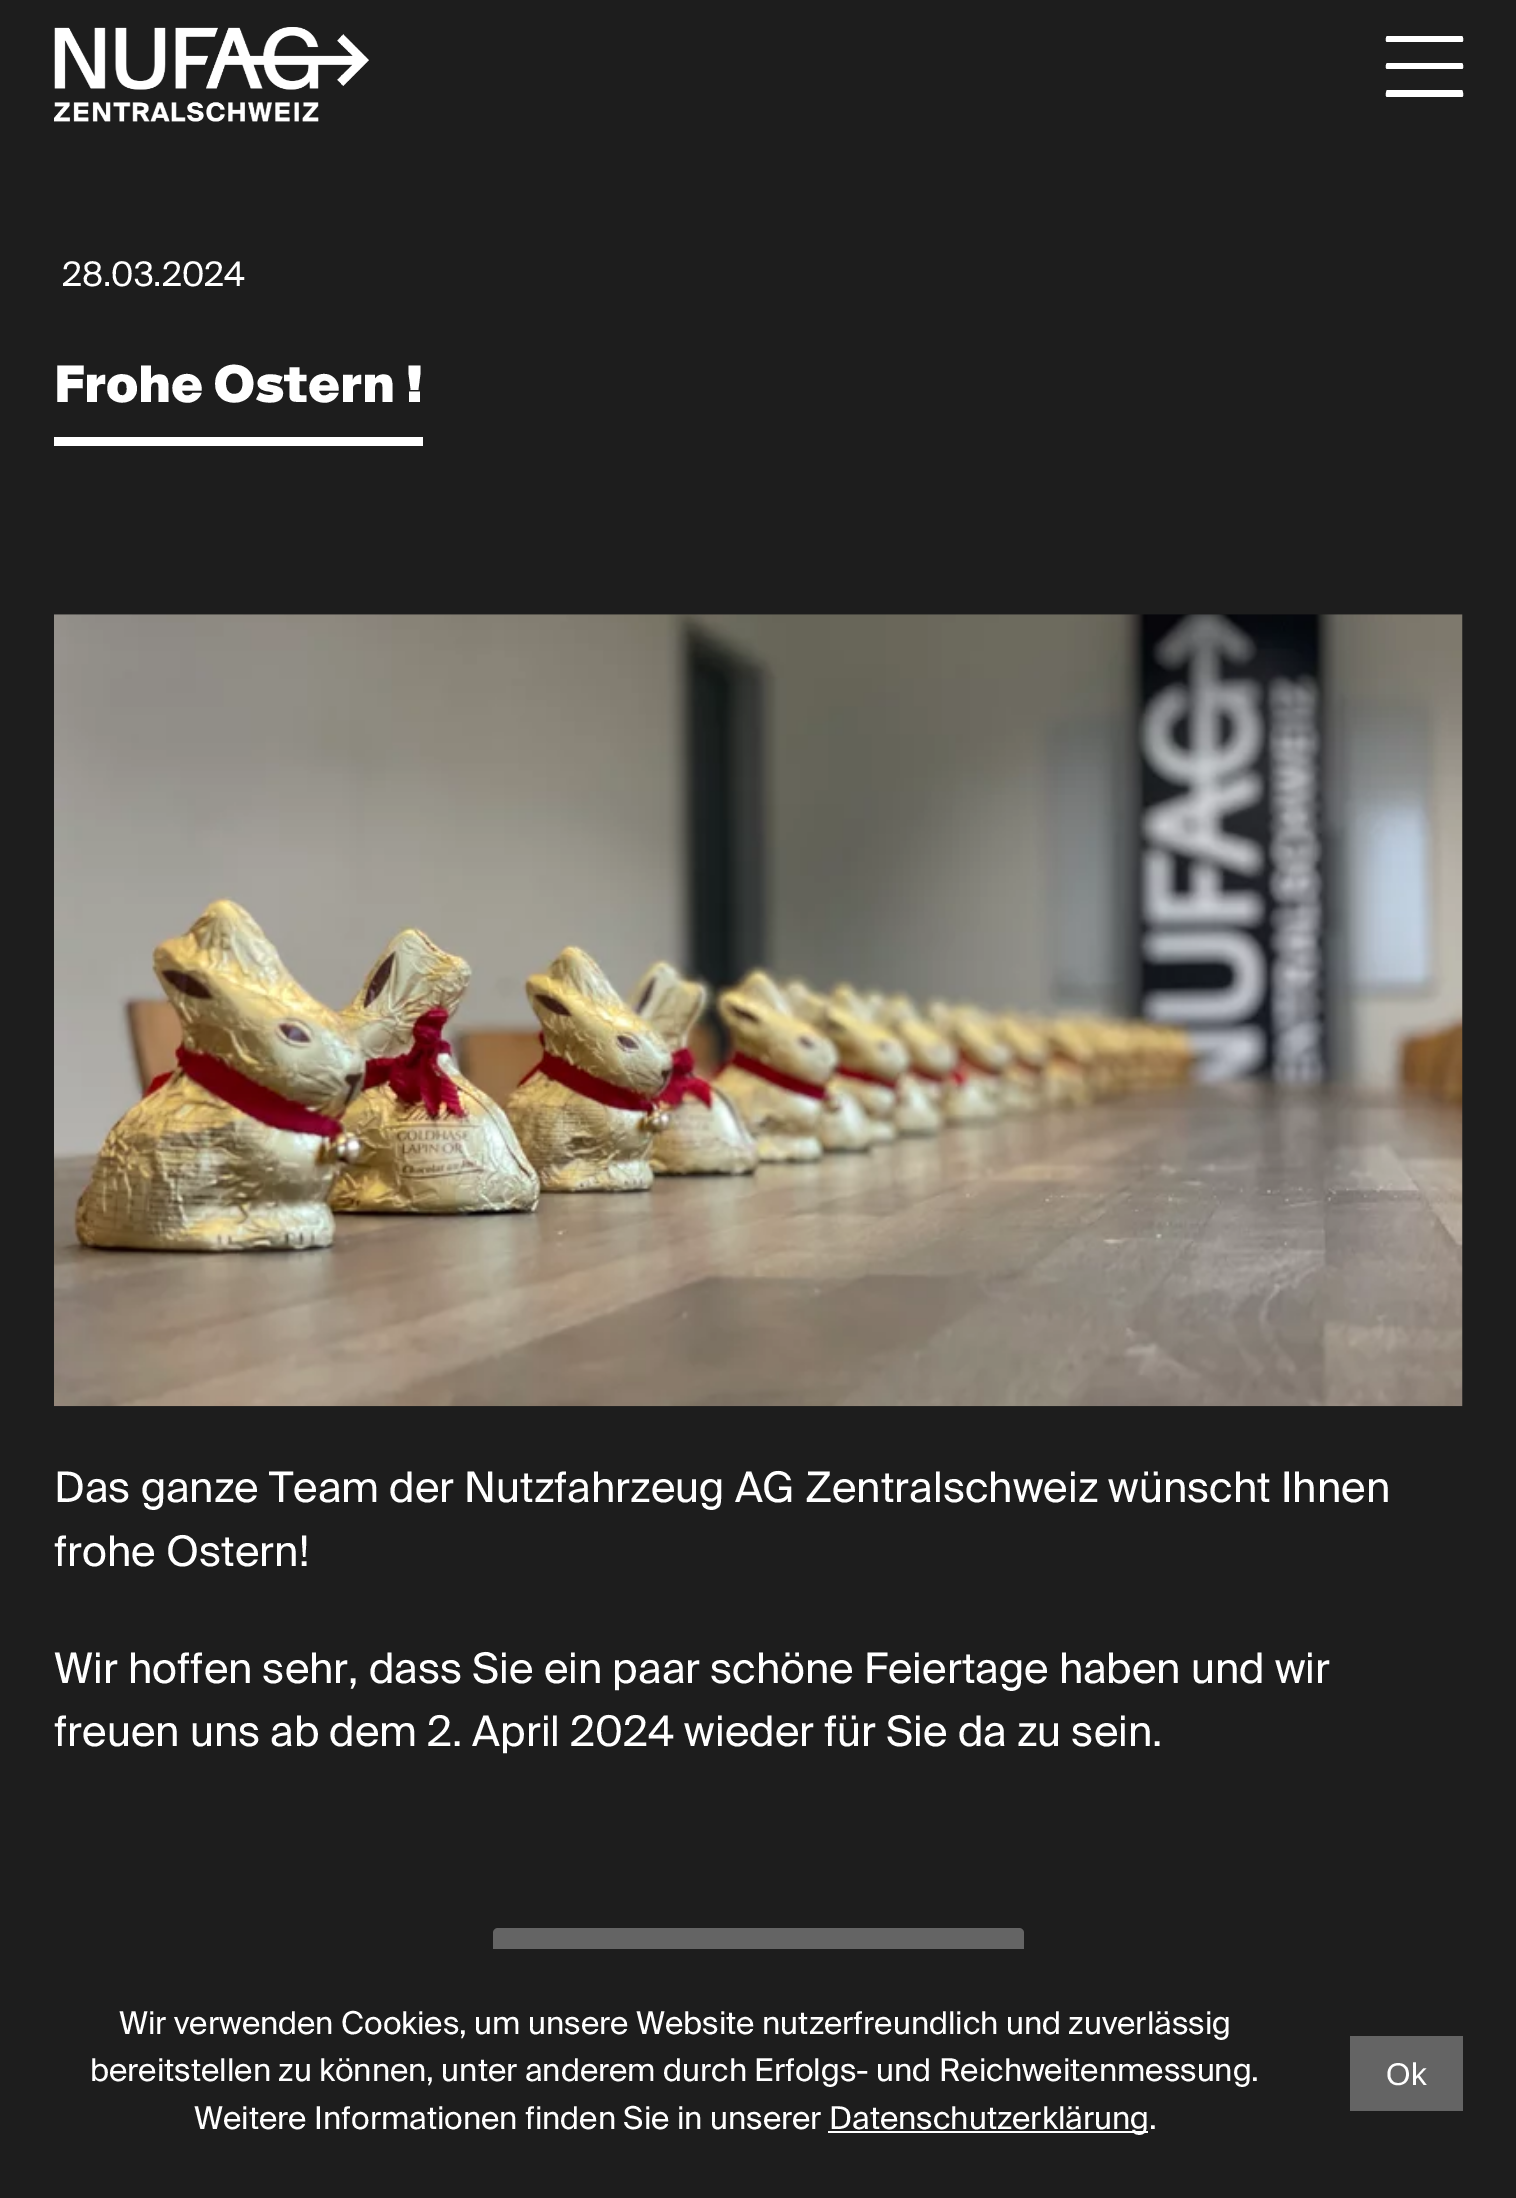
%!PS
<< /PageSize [1516 2198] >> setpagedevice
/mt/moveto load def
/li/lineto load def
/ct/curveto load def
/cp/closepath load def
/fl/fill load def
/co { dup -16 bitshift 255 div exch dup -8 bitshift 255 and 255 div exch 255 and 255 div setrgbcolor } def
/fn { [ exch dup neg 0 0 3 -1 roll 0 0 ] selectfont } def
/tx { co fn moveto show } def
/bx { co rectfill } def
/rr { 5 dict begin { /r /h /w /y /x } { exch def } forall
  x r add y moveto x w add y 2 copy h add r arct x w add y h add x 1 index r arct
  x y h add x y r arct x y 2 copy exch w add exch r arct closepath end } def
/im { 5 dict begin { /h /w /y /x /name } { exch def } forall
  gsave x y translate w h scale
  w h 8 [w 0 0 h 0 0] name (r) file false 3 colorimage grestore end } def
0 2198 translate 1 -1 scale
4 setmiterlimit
0 0 1516 2198 16#1D1D1D bx
(media/1.raw) 54 27 315 95 im
16#FFFFFF co
1462 42 mt 1387 42 li 1385 42 1386 36 1387 36 ct 1462 36 li 1463 36 1464 42 1462 42 ct cp 1462 69 mt 1387 69 li 1385 69 1386 63 1387 63 ct 1462 63 li 1463 63 1464 69 1462 69 ct cp 1462 97 mt 1387 97 li 1385 97 1386 91 1387 90 ct 1462 90 li 1463 91 1464 97 1462 97 ct cp fl
54 437 369 9 16#FFFFFF bx
(media/2.raw) 54 614 1409 793 im
16#646464 co
493 1928 531 115 5 rr fl
493 1949 531 94 16#1D1D1D bx
828 2131 320 2 16#FFFFFF bx
1350 2036 113 75 16#646464 bx
(28.03.2024) 62 286 /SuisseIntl-Regular 33.75 16#FFFFFF tx
(Frohe Ostern !) 54 402 /SuisseIntl-Black 50.5 16#FFFFFF tx
(Das ganze Team der Nutzfahrzeug AG Zentralschweiz wünscht Ihnen) 54 1502 /SuisseIntl-Regular 42.2 16#FFFFFF tx
(frohe Ostern!) 54 1566 /SuisseIntl-Regular 42.2 16#FFFFFF tx
(Wir hoffen sehr, dass Sie ein paar schöne Feiertage haben und wir) 54 1683 /SuisseIntl-Regular 42.2 16#FFFFFF tx
(freuen uns ab dem 2. April 2024 wieder für Sie da zu sein.) 54 1746 /SuisseIntl-Regular 42.2 16#FFFFFF tx
(Wir verwenden Cookies, um unsere Website nutzerfreundlich und zuverlässig) 119 2034 /SuisseIntl-Regular 31.5 16#FFFFFF tx
(bereitstellen zu können, unter anderem durch Erfolgs- und Reichweitenmessung.) 90 2081 /SuisseIntl-Regular 31.5 16#FFFFFF tx
(Weitere Informationen finden Sie in unserer) 194 2129 /SuisseIntl-Regular 31.5 16#FFFFFF tx
(Datenschutzerklärung.) 829 2129 /SuisseIntl-Regular 31.5 16#FFFFFF tx
(Ok) 1386 2085 /LiberationSans-Regular 31.5 16#FFFFFF tx
showpage
